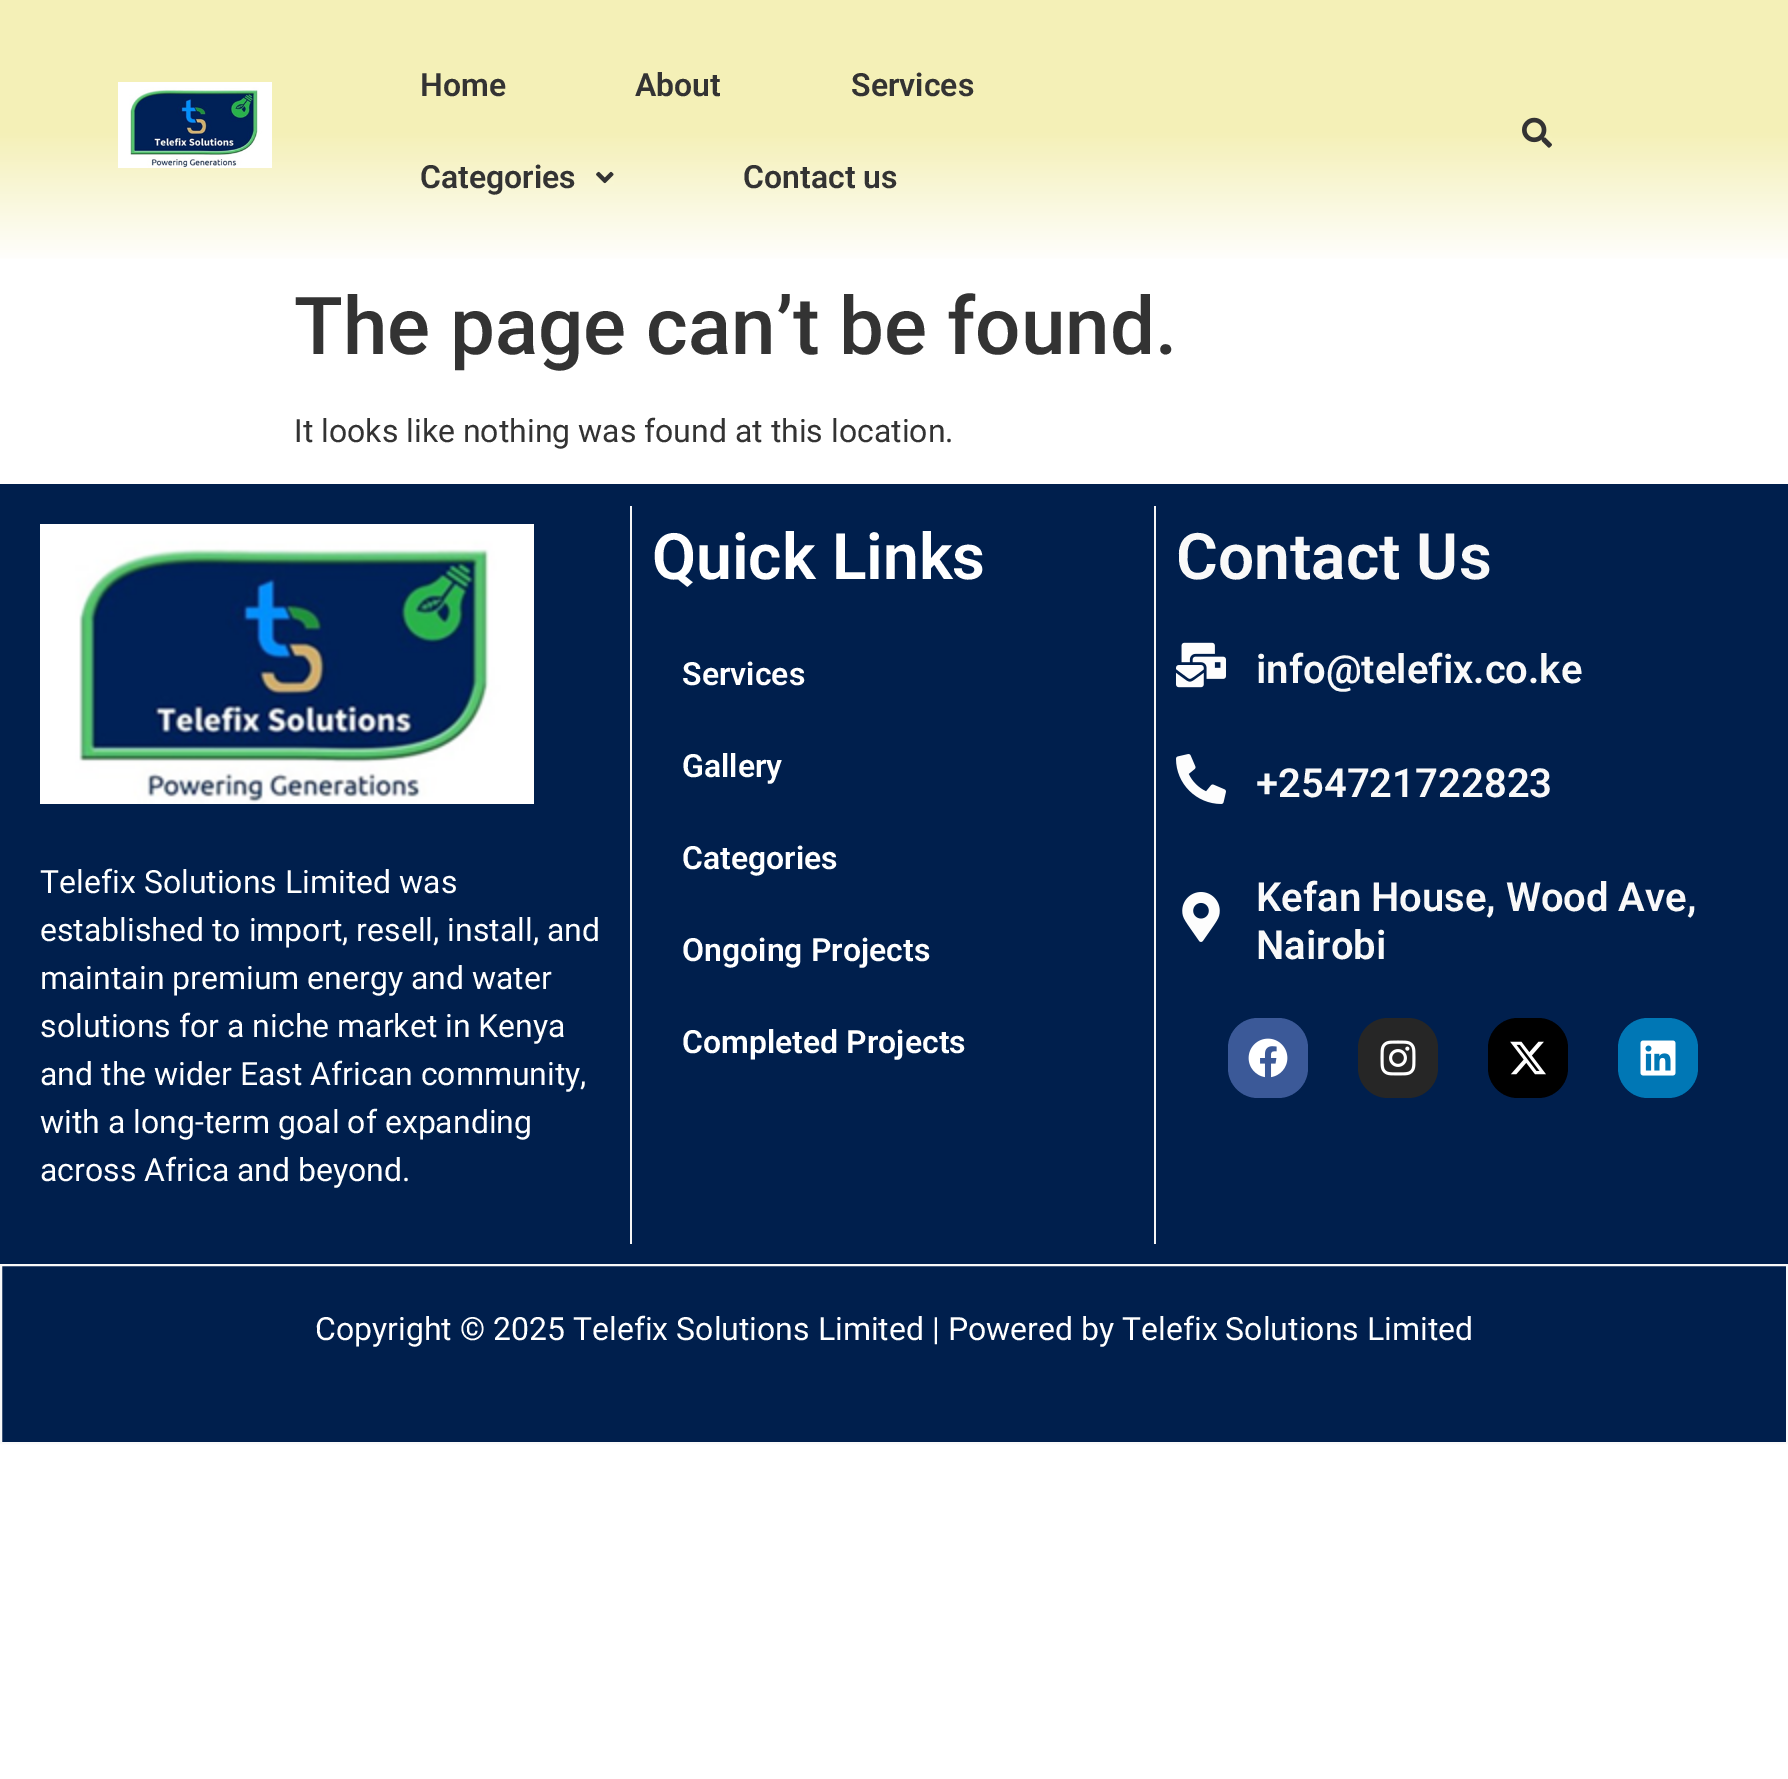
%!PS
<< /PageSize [1788 1779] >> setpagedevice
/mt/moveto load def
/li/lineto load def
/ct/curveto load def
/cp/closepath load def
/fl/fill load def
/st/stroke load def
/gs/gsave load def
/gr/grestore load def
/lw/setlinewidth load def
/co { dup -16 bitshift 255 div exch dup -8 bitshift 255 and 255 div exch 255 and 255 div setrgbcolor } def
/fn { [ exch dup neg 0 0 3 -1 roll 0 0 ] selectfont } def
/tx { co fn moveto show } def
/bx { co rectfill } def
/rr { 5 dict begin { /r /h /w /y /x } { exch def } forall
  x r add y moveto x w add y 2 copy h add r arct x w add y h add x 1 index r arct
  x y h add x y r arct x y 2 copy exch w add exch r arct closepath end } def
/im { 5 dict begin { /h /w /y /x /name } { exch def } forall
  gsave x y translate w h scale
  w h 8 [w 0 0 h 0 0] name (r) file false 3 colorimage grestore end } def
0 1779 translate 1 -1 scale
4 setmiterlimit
0 0 1788 1779 16#FFFFFF bx
gs 0 0 mt 1788 0 li 1788 259 li 0 259 li cp clip newpath
<< /ShadingType 2 /ColorSpace /DeviceRGB /Coords [894 0 894 264] /Extend [true true] /Function << /FunctionType 3 /Domain [0 1] /Functions [<< /FunctionType 2 /Domain [0 1] /C0 [.957 .941 .718] /C1 [.957 .941 .718] /N 1 >> << /FunctionType 2 /Domain [0 1] /C0 [.957 .941 .718] /C1 [1 1 1] /N 1 >>] /Bounds [.5] /Encode [0 1 0 1] >> >> shfill gr
(media/1.raw) 118 82 154 86 im
(media/2.raw) 596 171 18 13 im
(media/3.raw) 1522 117 30 31 im
0 484 1788 780 16#001F4D bx
1154 506 2 738 16#F5F5F5 bx
(media/4.raw) 1176 642 50 46 im
(media/5.raw) 1176 754 50 50 im
(media/6.raw) 1182 892 38 50 im
16#3B5998 co
1228 1018 80 80 30 rr fl
(media/7.raw) 1248 1038 40 40 im
16#262626 co
1358 1018 80 80 30 rr fl
(media/8.raw) 1380 1040 36 36 im
16#000000 co
1488 1018 80 80 30 rr fl
(media/9.raw) 1510 1041 36 34 im
16#0077B5 co
1618 1018 80 80 30 rr fl
(media/10.raw) 1640 1040 36 36 im
630 506 2 738 16#F5F5F5 bx
(media/11.raw) 40 524 494 280 im
16#001F4D co
2 1265 mt 1787 1265 li 1787 1443 li 1 1443 li 1 1266 li 1 1265.5 1.5 1265 2 1265 ct cp gs fl gr
16#F9F9F9 co
2 lw
st
(Home) 420 96 /Roboto-SemiBold 32 16#333333 tx
(About) 635 96 /Roboto-SemiBold 32 16#333333 tx
(Services) 851 96 /Roboto-SemiBold 32 16#333333 tx
(Categories) 420 188 /Roboto-SemiBold 32 16#333333 tx
(Contact us) 743 188 /Roboto-SemiBold 32 16#333333 tx
(The page can’t be found.) 294 354 /Roboto-Medium 80 16#333333 tx
(It looks like nothing was found at this location.) 294 442 /Roboto-Regular 32 16#333333 tx
(Quick Links) 652 579 /Roboto-SemiBold 64 16#FFFFFF tx
(Services) 682 685 /Roboto-SemiBold 32 16#FFFFFF tx
(Gallery) 682 777 /Roboto-SemiBold 32 16#FFFFFF tx
(Categories) 682 869 /Roboto-SemiBold 32 16#FFFFFF tx
(Ongoing Projects) 682 961 /Roboto-SemiBold 32 16#FFFFFF tx
(Completed Projects) 682 1053 /Roboto-SemiBold 32 16#FFFFFF tx
(Contact Us) 1176 579 /Roboto-SemiBold 64 16#F9F9F9 tx
(info@telefix.co.ke) 1256 683 /Roboto-SemiBold 40 16#F9F9F9 tx
(+254721722823) 1256 797 /Roboto-SemiBold 40 16#F9F9F9 tx
(Kefan House, Wood Ave,) 1256 911 /Roboto-SemiBold 40 16#F9F9F9 tx
(Nairobi) 1256 959 /Roboto-SemiBold 40 16#F9F9F9 tx
(Telefix Solutions Limited was) 40 893 /Roboto-Regular 32 16#FFFFFF tx
(established to import, resell, install, and) 40 941 /Roboto-Regular 32 16#FFFFFF tx
(maintain premium energy and water) 40 989 /Roboto-Regular 32 16#FFFFFF tx
(solutions for a niche market in Kenya) 40 1037 /Roboto-Regular 32 16#FFFFFF tx
(and the wider East African community,) 40 1085 /Roboto-Regular 32 16#FFFFFF tx
(with a long-term goal of expanding) 40 1133 /Roboto-Regular 32 16#FFFFFF tx
(across Africa and beyond.) 40 1181 /Roboto-Regular 32 16#FFFFFF tx
(Copyright © 2025 Telefix Solutions Limited | Powered by Telefix Solutions Limited) 315 1340 /Roboto-Regular 32 16#FFFFFF tx
showpage
